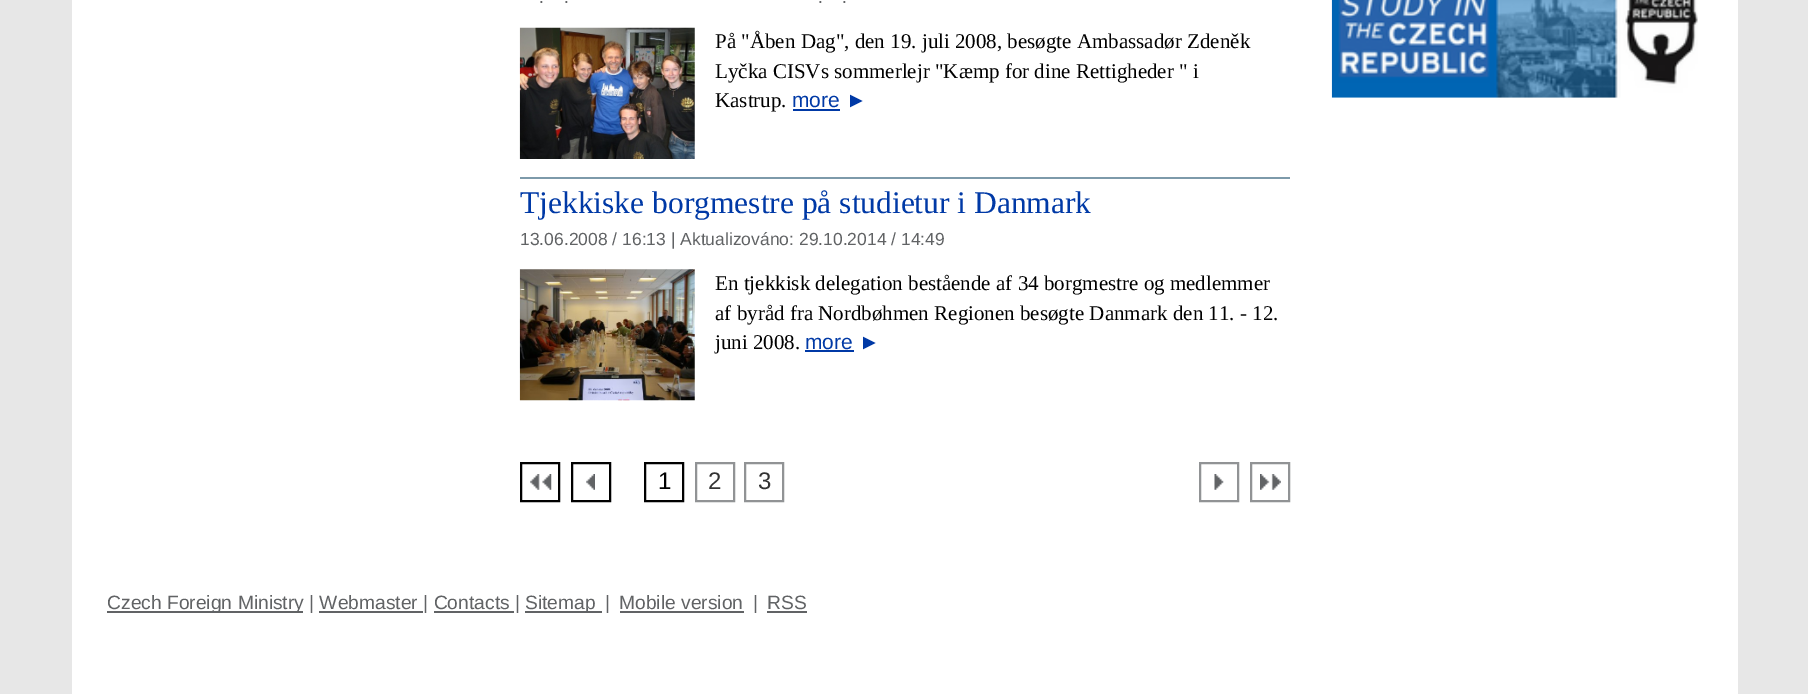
%!PS
<< /PageSize [1808 694] >> setpagedevice
/lw/setlinewidth load def
/co { dup -16 bitshift 255 div exch dup -8 bitshift 255 and 255 div exch 255 and 255 div setrgbcolor } def
/fn { [ exch dup neg 0 0 3 -1 roll 0 0 ] selectfont } def
/tx { co fn moveto show } def
/bx { co rectfill } def
/im { 5 dict begin { /h /w /y /x /name } { exch def } forall
  gsave x y translate w h scale
  w h 8 [w 0 0 h 0 0] name (r) file false 3 colorimage grestore end } def
0 694 translate 1 -1 scale
4 setmiterlimit
0 0 1808 694 16#E7E7E7 bx
72 0 1666 694 16#FFFFFF bx
(media/1.raw) 519 27 176 132 im
793 109 47 2 16#0039A6 bx
520 177 770 2 16#7D9AAA bx
(media/2.raw) 519 269 176 132 im
805 350 49 2 16#0039A6 bx
(media/3.raw) 530 474 22 16 im
16#000000 co
2 lw
521 463 38 38 rectstroke
(media/4.raw) 586 474 9 16 im
572 463 38 38 rectstroke
645 463 38 38 rectstroke
16#919395 co
696 463 38 38 rectstroke
745 463 38 38 rectstroke
(media/5.raw) 1214 474 10 16 im
1200 463 38 38 rectstroke
(media/6.raw) 1260 474 21 16 im
1251 463 38 38 rectstroke
(media/7.raw) 1331 0 367 98 im
107 611 196 2 16#616365 bx
525 611 77 2 16#616365 bx
620 611 124 2 16#616365 bx
767 611 40 2 16#616365 bx
319 611 104 2 16#616365 bx
434 611 80 2 16#616365 bx
(.) 539 3 /LiberationSans-Regular 17.5 16#616365 tx
(.) 564 3 /LiberationSans-Regular 17.5 16#616365 tx
(.) 818 3 /LiberationSans-Regular 17.5 16#616365 tx
(.) 842 3 /LiberationSans-Regular 17.5 16#616365 tx
(På "Åben Dag", den 19. juli 2008, besøgte Ambassadør Zdeněk) 715 48 /LiberationSerif-Regular 21 16#000000 tx
(Lyčka CISVs sommerlejr "Kæmp for dine Rettigheder " i) 715 78 /LiberationSerif-Regular 21 16#000000 tx
(Kastrup.) 715 107 /LiberationSerif-Regular 21 16#000000 tx
(more ►) 792 107 /LiberationSans-Regular 21 16#0039A6 tx
(Tjekkiske borgmestre på studietur i Danmark) 520 213 /LiberationSerif-Regular 31.5 16#0039A6 tx
(13.06.2008 / 16:13 | Aktualizováno: 29.10.2014 / 14:49) 520 245 /LiberationSans-Regular 17.5 16#616365 tx
(En tjekkisk delegation bestående af 34 borgmestre og medlemmer) 715 290 /LiberationSerif-Regular 21 16#000000 tx
(af byråd fra Nordbøhmen Regionen besøgte Danmark den 11. - 12.) 715 320 /LiberationSerif-Regular 21 16#000000 tx
(juni 2008.) 715 349 /LiberationSerif-Regular 21 16#000000 tx
(more ►) 805 349 /LiberationSans-Regular 21 16#0039A6 tx
(1) 658 489 /LiberationSans-Regular 24 16#000000 tx
(2) 708 489 /LiberationSans-Regular 24 16#333333 tx
(3) 758 489 /LiberationSans-Regular 24 16#333333 tx
(Czech Foreign Ministry | Webmaster | Contacts |) 107 609 /LiberationSans-Regular 19.25 16#616365 tx
(Sitemap) 525 609 /LiberationSans-Regular 19.25 16#616365 tx
(|) 605 609 /LiberationSans-Regular 19.25 16#616365 tx
(Mobile version) 619 609 /LiberationSans-Regular 19.25 16#616365 tx
(|) 753 609 /LiberationSans-Regular 19.25 16#616365 tx
(RSS) 767 609 /LiberationSans-Regular 19.25 16#616365 tx
showpage
